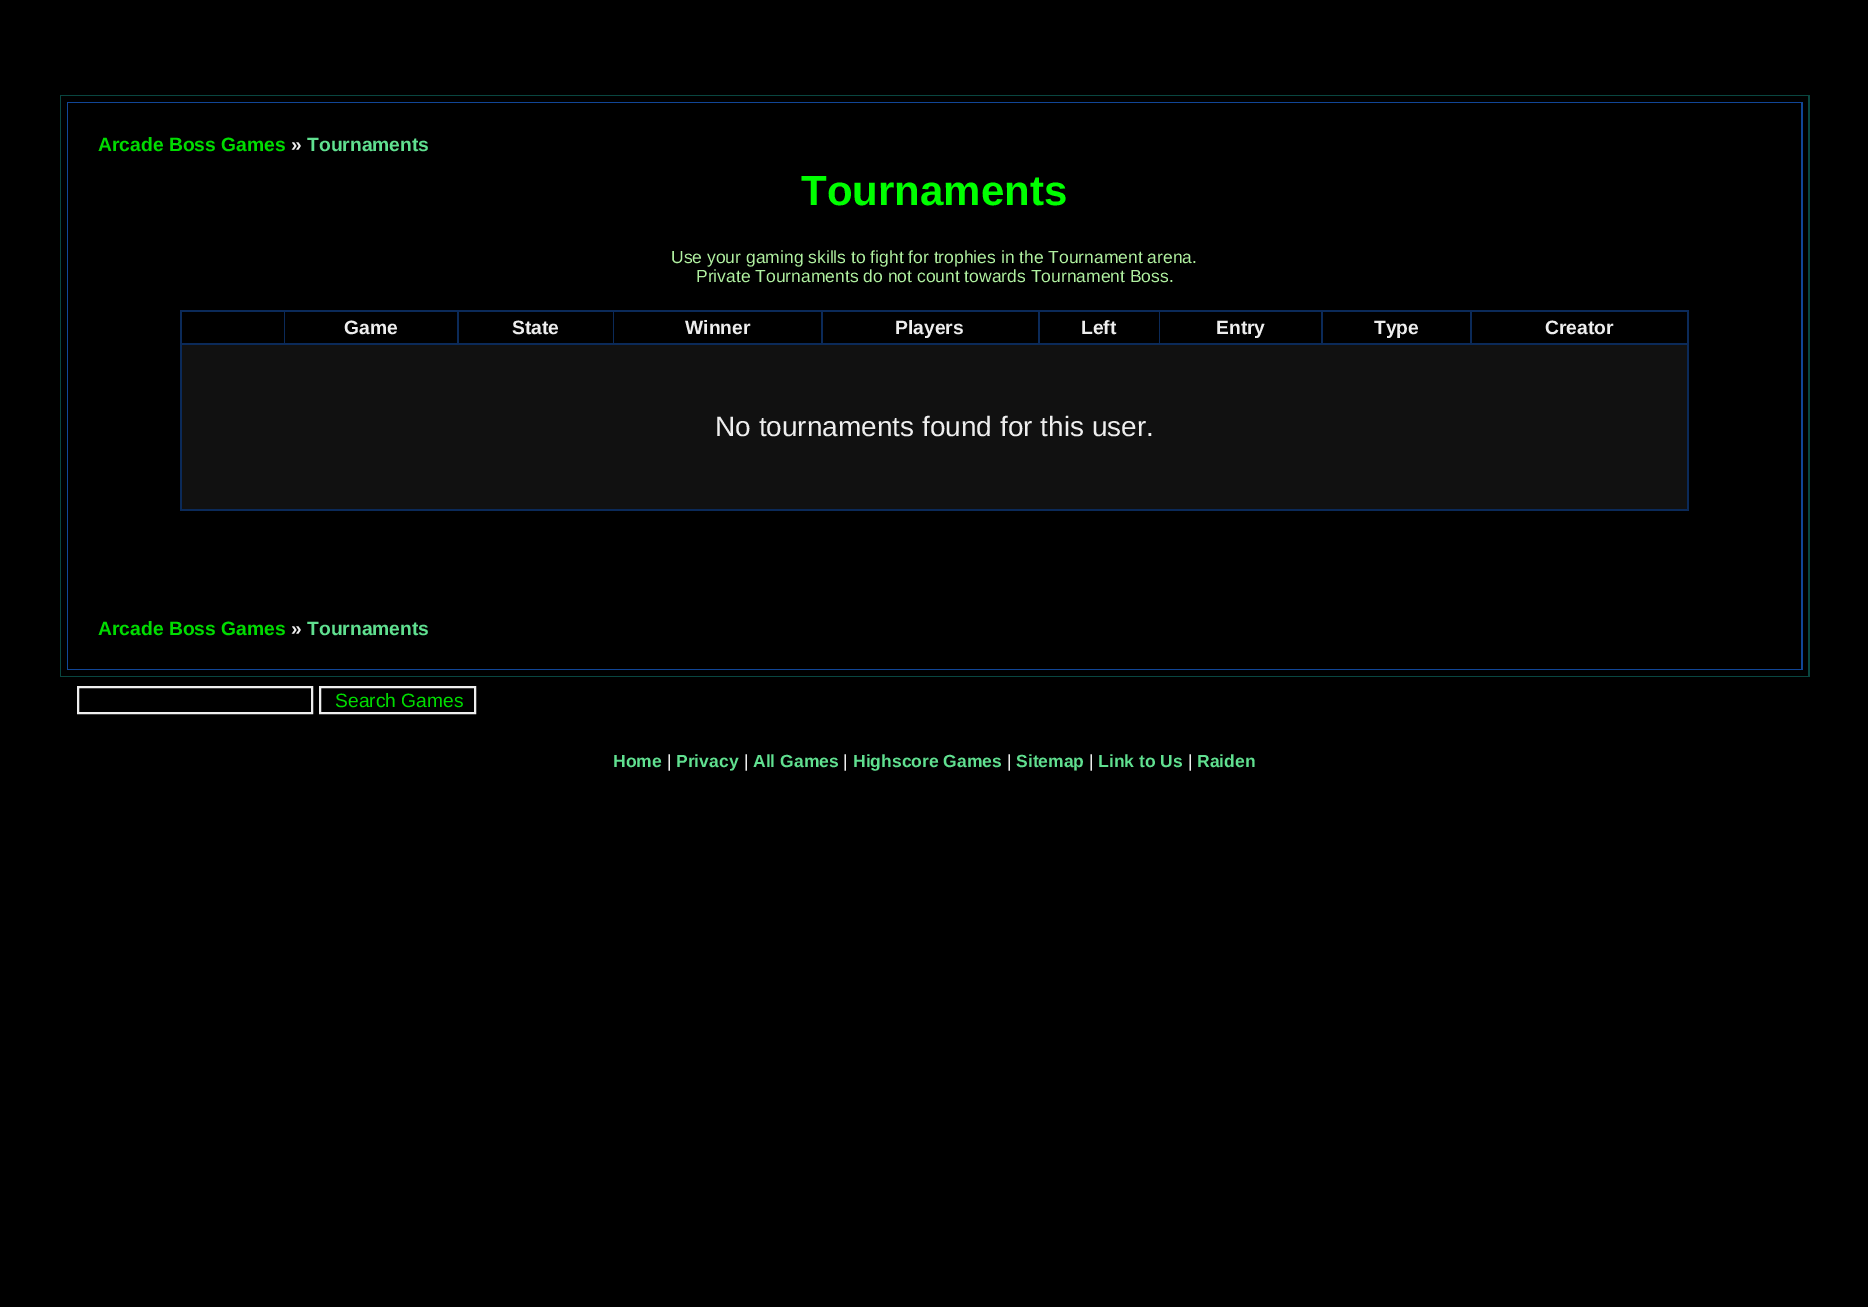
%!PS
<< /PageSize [1868 1307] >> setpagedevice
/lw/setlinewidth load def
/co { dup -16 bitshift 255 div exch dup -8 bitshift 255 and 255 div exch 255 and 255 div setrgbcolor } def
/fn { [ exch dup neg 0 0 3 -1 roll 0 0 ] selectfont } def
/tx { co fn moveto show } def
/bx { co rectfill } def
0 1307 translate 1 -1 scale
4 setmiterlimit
0 0 1868 1307 16#000000 bx
60 95 1750 582 16#094640 bx
61 96 1747 580 16#000000 bx
67 102 1736 568 16#114697 bx
68 103 1733 566 16#000000 bx
180 310 1509 201 16#0B2A59 bx
182 312 102 31 16#000000 bx
285 312 172 31 16#000000 bx
459 312 154 31 16#000000 bx
614 312 207 31 16#000000 bx
823 312 215 31 16#000000 bx
1040 312 119 31 16#000000 bx
1160 312 161 31 16#000000 bx
1323 312 147 31 16#000000 bx
1472 312 215 31 16#000000 bx
182 345 1505 164 16#111111 bx
16#EEEEEE co
2 lw
78 687 234 26 rectstroke
320 687 155 26 rectstroke
(Arcade Boss Games) 98 151 /LiberationSans-Bold 19.25 16#00DC00 tx
(») 291 151 /LiberationSans-Bold 19.25 16#EEEEEE tx
(Tournaments) 307 151 /LiberationSans-Bold 19.25 16#60E090 tx
(Tournaments) 801 205 /LiberationSans-Bold 42 16#00FF00 tx
(Use your gaming skills to fight for trophies in the Tournament arena.) 671 263 /LiberationSans-Regular 17.5 16#B0F0A0 tx
(Private Tournaments do not count towards Tournament Boss.) 696 282 /LiberationSans-Regular 17.5 16#B0F0A0 tx
(Game) 344 334 /LiberationSans-Bold 19.25 16#EEEEEE tx
(State) 512 334 /LiberationSans-Bold 19.25 16#EEEEEE tx
(Winner) 685 334 /LiberationSans-Bold 19.25 16#EEEEEE tx
(Players) 895 334 /LiberationSans-Bold 19.25 16#EEEEEE tx
(Left) 1081 334 /LiberationSans-Bold 19.25 16#EEEEEE tx
(Entry) 1216 334 /LiberationSans-Bold 19.25 16#EEEEEE tx
(Type) 1374 334 /LiberationSans-Bold 19.25 16#EEEEEE tx
(Creator) 1545 334 /LiberationSans-Bold 19.25 16#EEEEEE tx
(No tournaments found for this user.) 715 436 /LiberationSans-Regular 28 16#EEEEEE tx
(Arcade Boss Games) 98 635 /LiberationSans-Bold 19.25 16#00DC00 tx
(») 291 635 /LiberationSans-Bold 19.25 16#EEEEEE tx
(Tournaments) 307 635 /LiberationSans-Bold 19.25 16#60E090 tx
(Search Games) 335 707 /LiberationSans-Regular 19.25 16#00DC00 tx
(Home) 613 767 /LiberationSans-Bold 17.5 16#60E090 tx
(|) 667 767 /LiberationSans-Regular 17.5 16#EEEEEE tx
(Privacy) 676 767 /LiberationSans-Bold 17.5 16#60E090 tx
(|) 744 767 /LiberationSans-Regular 17.5 16#EEEEEE tx
(All Games) 753 767 /LiberationSans-Bold 17.5 16#60E090 tx
(|) 843 767 /LiberationSans-Regular 17.5 16#EEEEEE tx
(Highscore Games) 853 767 /LiberationSans-Bold 17.5 16#60E090 tx
(|) 1007 767 /LiberationSans-Regular 17.5 16#EEEEEE tx
(Sitemap) 1016 767 /LiberationSans-Bold 17.5 16#60E090 tx
(|) 1089 767 /LiberationSans-Regular 17.5 16#EEEEEE tx
(Link to Us) 1098 767 /LiberationSans-Bold 17.5 16#60E090 tx
(|) 1188 767 /LiberationSans-Regular 17.5 16#EEEEEE tx
(Raiden) 1197 767 /LiberationSans-Bold 17.5 16#60E090 tx
showpage
